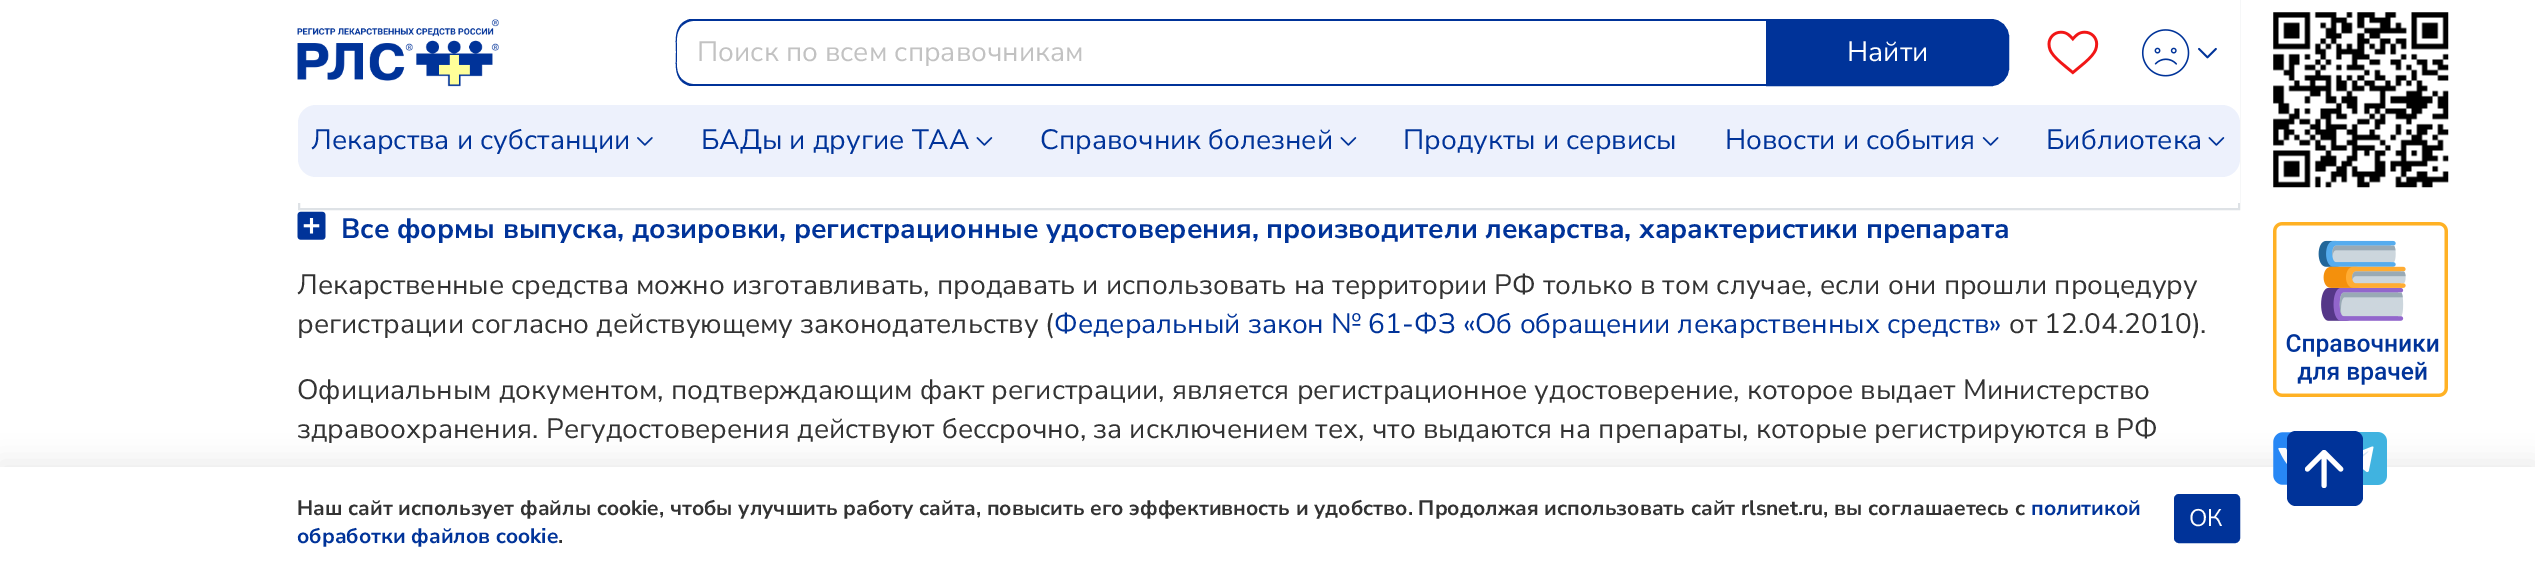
%!PS
<< /PageSize [2535 575] /PageUsesTransparency true >> setpagedevice
/mt/moveto load def
/li/lineto load def
/ct/curveto load def
/cp/closepath load def
/fl/fill load def
/st/stroke load def
/gs/gsave load def
/gr/grestore load def
/lw/setlinewidth load def
/co { dup -16 bitshift 255 div exch dup -8 bitshift 255 and 255 div exch 255 and 255 div setrgbcolor } def
/fn { [ exch dup neg 0 0 3 -1 roll 0 0 ] selectfont } def
/tx { co fn moveto show } def
/bx { co rectfill } def
/al { dup .setfillconstantalpha .setstrokeconstantalpha } def
/rr { 5 dict begin { /r /h /w /y /x } { exch def } forall
  x r add y moveto x w add y 2 copy h add r arct x w add y h add x 1 index r arct
  x y h add x y r arct x y 2 copy exch w add exch r arct closepath end } def
/sh { 12 dict begin { /a /b /q /h /w /y /x } { exch def } forall gsave /was 0 def
  9 -2 -9 { dup b mul 4 div /e exch def 1 sub .425 mul 2.718 exch exp 1 add a .99 .min exch div /now exch def
    1 1 now sub 1 was sub div sub al /was now def
    w h .min e 2 mul add 0 gt { x e sub y e sub w e 2 mul add h e 2 mul add
      q e add b .6 mul add w h .min 2 div e add .min 0 .max rr fill } if } for grestore end } def
/im { 5 dict begin { /h /w /y /x /name } { exch def } forall
  gsave x y translate w h scale
  w h 8 [w 0 0 h 0 0] name (r) file false 3 colorimage grestore end } def
0 .pushpdf14devicefilter
0 575 translate 1 -1 scale
4 setmiterlimit
0 0 2535 575 16#FFFFFF bx
16#DEE2E6 co
2 lw
299 -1 1940 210 rectstroke
298 0 1942 203 16#FFFFFF bx
(media/1.raw) 297 19 202 68 im
16#003399 co
693 21 mt 689 21 685 23 682 26 ct 681 24 li 683 22 686 20 690 19 ct 1768 19 li 1766 21 li cp fl
1768 86 mt 690 86 li 686 85 683 83 681 81 ct 682 79 li 685 82 689 84 693 84 ct 1766 84 li cp fl
681 81 mt 674 73 676 62 676 52 ct 676 43 674 32 681 24 ct 682 26 li 675 32 677 44 677 52 ct 677 61 675 73 682 79 ct cp fl
1767 20 mt 1991 20 li 2000.5 20 2008 27.5 2008 37 ct 2008 68 li 2008 77.5 2000.5 85 1991 85 ct 1767 85 li cp gs fl gr
st
(media/2.raw) 2047 30 52 45 im
(media/3.raw) 2141 29 49 48 im
(media/4.raw) 2198 47 19 12 im
16#EDF1FC co
298 105 1942 72 18 rr fl
(media/5.raw) 637 137 16 9 im
(media/6.raw) 976 137 17 9 im
(media/6.raw) 1340 137 17 9 im
(media/7.raw) 1982 137 17 9 im
(media/6.raw) 2208 137 17 9 im
(media/8.raw) 2273 12 176 176 im
(media/9.raw) 2273 222 175 175 im
16#323232 co
0 462 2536 109 0 13 .1 sh
0 467 2535 108 16#FFFFFF bx
(media/11.raw) 2273 432 19 53 im
(media/12.raw) 2358 432 29 53 im
16#003399 co
2287 431 76 75 9 rr fl
(media/10.raw) 2305 450 39 38 im
(media/13.raw) 297 211 29 29 im
2175 495 64 47 4 rr gs fl gr
st
(Поиск по всем справочникам) 697 61 /NunitoSans-Regular 28 16#C2C2C2 tx
(Найти) 1847 61 /NunitoSans-Regular 28 16#FFFFFF tx
(Лекарства и субстанции) 311 149 /NunitoSans-Regular 28 16#003399 tx
(БАДы и другие ТАА) 701 149 /NunitoSans-Regular 28 16#003399 tx
(Справочник болезней) 1040 149 /NunitoSans-Regular 28 16#003399 tx
(Продукты и сервисы) 1403 149 /NunitoSans-Regular 28 16#003399 tx
(Новости и события) 1725 149 /NunitoSans-Regular 28 16#003399 tx
(Библиотека) 2046 149 /NunitoSans-Regular 28 16#003399 tx
(Все формы выпуска, дозировки, регистрационные удостоверения, производители лекарства, характеристики препарата) 341 238 /NunitoSans-Bold 28 16#003399 tx
(Лекарственные средства можно изготавливать, продавать и использовать на территории РФ только в том случае, если они прошли процедуру) 297 294 /NunitoSans-Regular 28 16#333333 tx
(регистрации согласно действующему законодательству \() 297 333 /NunitoSans-Regular 28 16#333333 tx
(Федеральный закон № 61-ФЗ «Об обращении лекарственных средств») 1054 333 /NunitoSans-Regular 28 16#003399 tx
(от 12.04.2010\).) 2009 333 /NunitoSans-Regular 28 16#333333 tx
(Официальным документом, подтверждающим факт регистрации, является регистрационное удостоверение, которое выдает Министерство) 297 399 /NunitoSans-Regular 28 16#333333 tx
(здравоохранения. Регудостоверения действуют бессрочно, за исключением тех, что выдаются на препараты, которые регистрируются в РФ) 297 438 /NunitoSans-Regular 28 16#333333 tx
(Наш сайт использует файлы cookie, чтобы улучшить работу сайта, повысить его эффективность и удобство. Продолжая использовать сайт rlsnet.ru, вы соглашаетесь с) 297 515 /NunitoSans-Bold 21 16#333333 tx
(политикой) 2031 515 /NunitoSans-Bold 21 16#003399 tx
(обработки файлов cookie) 297 543 /NunitoSans-Bold 21 16#003399 tx
(.) 558 543 /NunitoSans-Bold 21 16#333333 tx
(ОК) 2189 526 /NunitoSans-Regular 24 16#FFFFFF tx
.poppdf14devicefilter showpage
